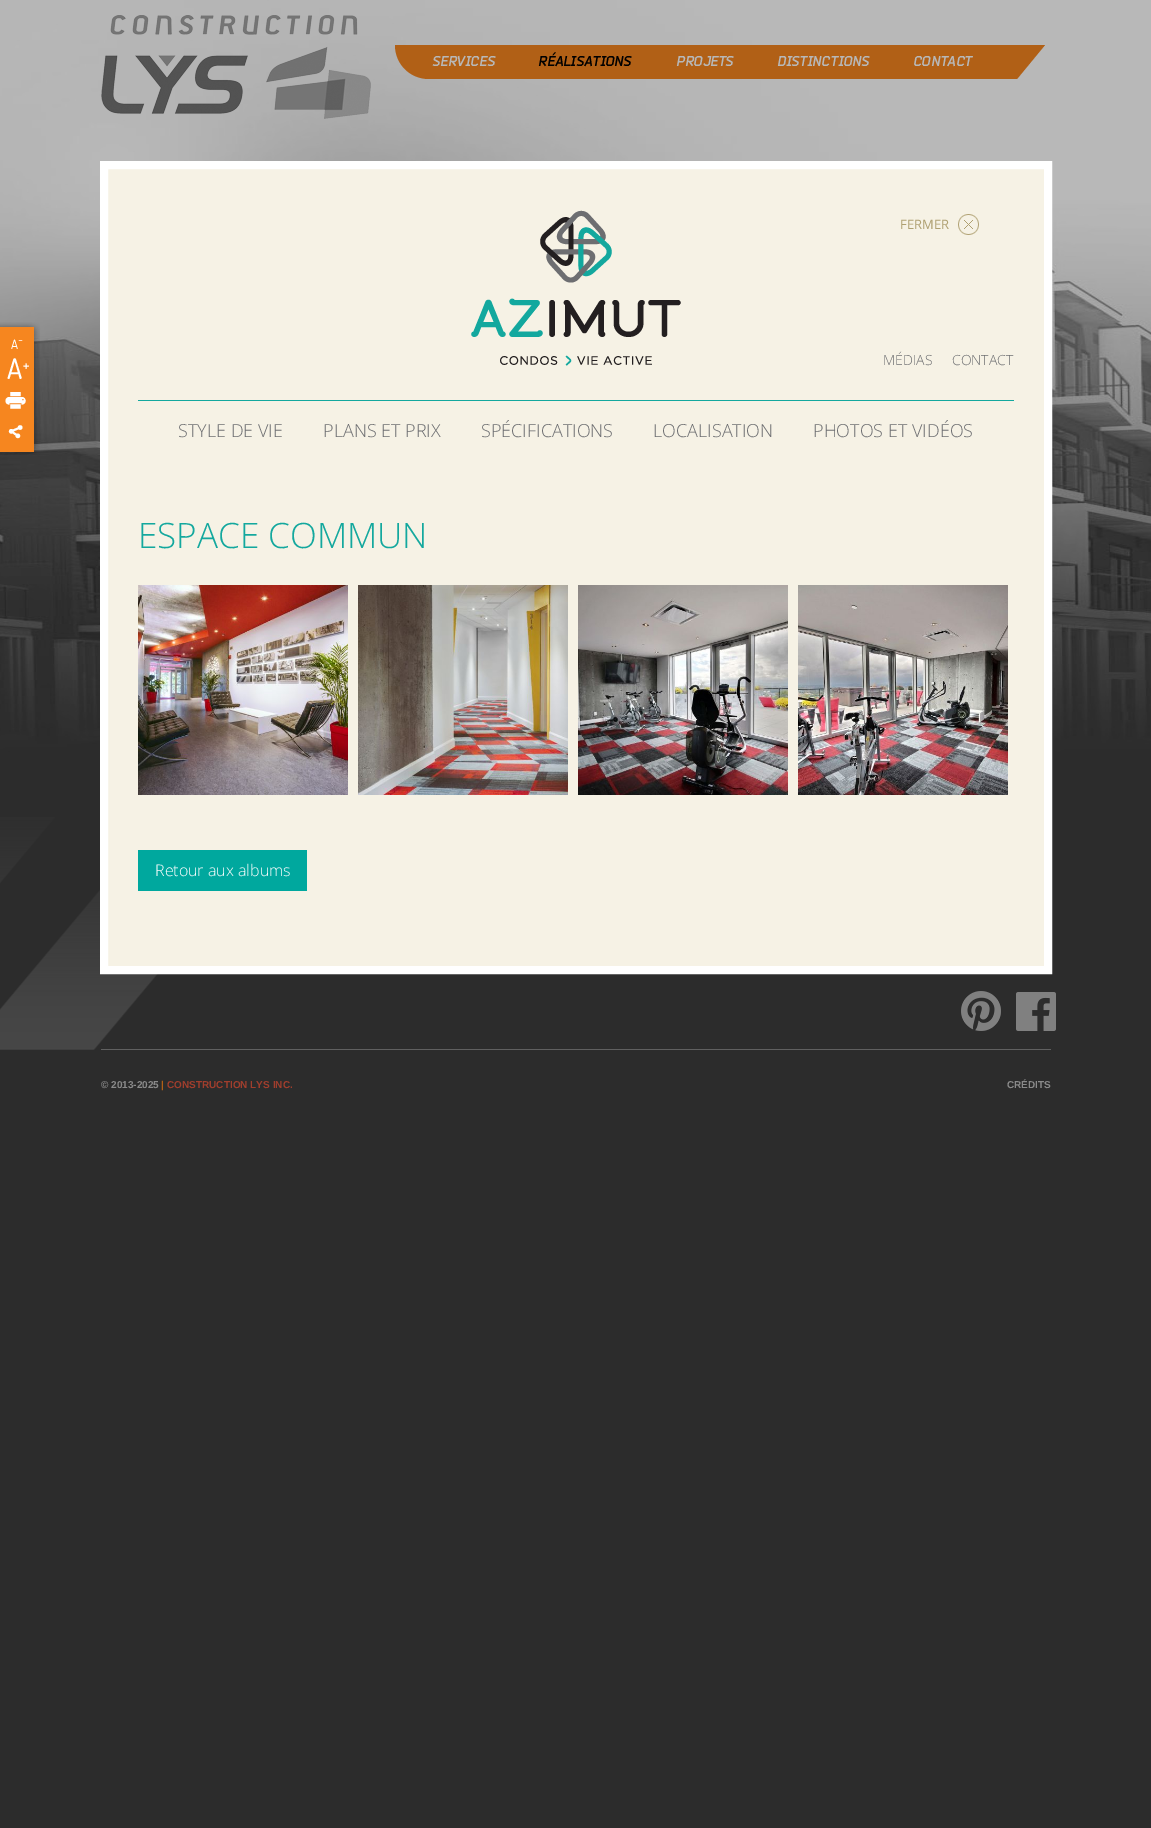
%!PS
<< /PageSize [1151 1828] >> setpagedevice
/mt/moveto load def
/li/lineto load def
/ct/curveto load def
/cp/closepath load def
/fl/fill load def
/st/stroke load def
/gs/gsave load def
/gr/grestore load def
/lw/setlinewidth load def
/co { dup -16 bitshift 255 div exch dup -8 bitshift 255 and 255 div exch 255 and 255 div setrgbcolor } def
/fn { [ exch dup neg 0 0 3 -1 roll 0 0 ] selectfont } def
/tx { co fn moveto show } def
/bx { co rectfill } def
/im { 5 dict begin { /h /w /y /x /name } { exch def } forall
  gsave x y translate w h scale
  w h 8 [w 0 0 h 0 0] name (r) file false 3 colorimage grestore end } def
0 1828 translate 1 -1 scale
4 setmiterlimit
0 0 1151 1828 16#2C2C2C bx
(media/1.raw) 0 0 1151 911 im
(media/2.raw) 0 322 40 133 im
(media/3.raw) 11 339 12 10 im
(media/4.raw) 7 358 22 21 im
(media/5.raw) 5 392 21 17 im
(media/6.raw) 8 425 15 14 im
(media/7.raw) 0 817 158 233 im
(media/8.raw) 101 15 270 104 im
16#B16016 co
395 45 mt 1017 45 li 1017 79 li 429 79 li 410 79 395 64 395 45 ct cp fl
1017 45 mt 1045 45 li 1017 79 li cp fl
16#F6F2E5 co
104 165 mt 1048 165 li 1048 970 li 104 970 li cp gs fl gr
16#FFFFFF co
8 lw
st
(media/9.raw) 471 210 210 156 im
(media/10.raw) 958 214 21 21 im
138 400 876 1 16#13A89E bx
(media/11.raw) 138 585 210 210 im
(media/12.raw) 358 585 210 210 im
(media/13.raw) 578 585 210 210 im
(media/14.raw) 798 585 210 210 im
138 850 169 41 16#00A89E bx
101 1049 950 1 16#606060 bx
(media/15.raw) 961 991 40 40 im
(media/16.raw) 1016 992 40 39 im
(SERVICES) 432 66 /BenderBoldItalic-Bold 14 16#B8B8B8 tx
(RÉALISATIONS) 538 66 /BenderBoldItalic-Bold 14 16#000000 tx
(PROJETS) 676 66 /BenderBoldItalic-Bold 14 16#B8B8B8 tx
(DISTINCTIONS) 777 66 /BenderBoldItalic-Bold 14 16#B8B8B8 tx
(CONTACT) 913 66 /BenderBoldItalic-Bold 14 16#B8B8B8 tx
(FERMER) 900 229 /OpenSans-Regular 13 16#AFA071 tx
(MÉDIAS) 883 365 /OpenSans-Light 14 16#6D6E71 tx
(CONTACT) 952 365 /OpenSans-Light 14 16#6D6E71 tx
(STYLE DE VIE) 178 437 /OpenSans-Light 18 16#6D6E71 tx
(PLANS ET PRIX) 323 437 /OpenSans-Light 18 16#6D6E71 tx
(SPÉCIFICATIONS) 481 437 /OpenSans-Light 18 16#6D6E71 tx
(LOCALISATION) 653 437 /OpenSans-Light 18 16#6D6E71 tx
(PHOTOS ET VIDÉOS) 813 437 /OpenSans-Light 18 16#6D6E71 tx
(ESPACE COMMUN) 138 548 /OpenSans-Light 35 16#13A89E tx
(Retour aux albums) 155 876 /OpenSans-Light 16 16#FFFFFF tx
(© 2013-2025) 101 1088 /LiberationSans-Bold 10 16#8A8A8A tx
(|) 161 1088 /LiberationSans-Bold 10 16#B16016 tx
(CONSTRUCTION LYS INC.) 167 1088 /LiberationSans-Bold 10 16#A13E2D tx
(CRÉDITS) 1007 1088 /LiberationSans-Bold 10 16#8A8A8A tx
showpage
